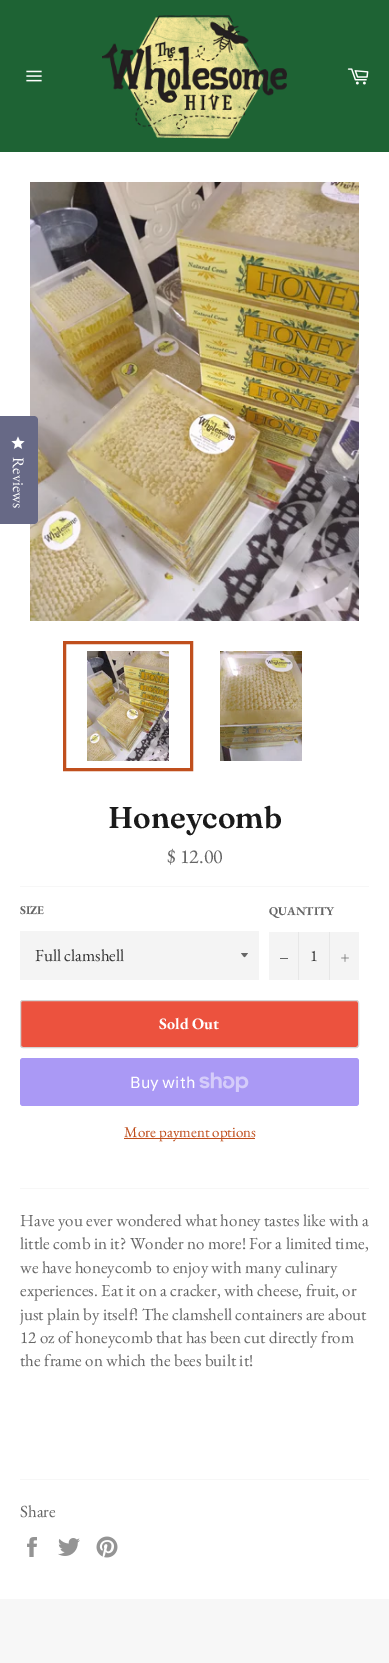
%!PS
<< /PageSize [389 1663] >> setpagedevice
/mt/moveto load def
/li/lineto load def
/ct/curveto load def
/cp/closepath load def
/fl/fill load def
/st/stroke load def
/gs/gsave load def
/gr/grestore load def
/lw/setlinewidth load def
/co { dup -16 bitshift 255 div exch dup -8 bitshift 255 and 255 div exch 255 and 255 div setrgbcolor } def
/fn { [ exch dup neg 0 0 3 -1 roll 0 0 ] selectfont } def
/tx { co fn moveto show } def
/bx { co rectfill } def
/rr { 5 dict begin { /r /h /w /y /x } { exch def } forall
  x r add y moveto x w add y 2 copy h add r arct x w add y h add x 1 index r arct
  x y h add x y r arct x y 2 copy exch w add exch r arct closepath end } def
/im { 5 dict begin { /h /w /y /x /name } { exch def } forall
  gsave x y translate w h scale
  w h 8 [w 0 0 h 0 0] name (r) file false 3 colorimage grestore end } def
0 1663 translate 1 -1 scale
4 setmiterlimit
0 0 389 1663 16#1E6334 bx
(media/1.raw) 26 70 16 12 im
(media/2.raw) 102 15 185 124 im
(media/3.raw) 347 68 22 17 im
0 152 389 1447 16#FFFFFF bx
(media/5.raw) 30 182 329 439 im
16#676986 co
-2 416 mt 34 416 li 36 416 38 418 38 420 ct 38 520 li 38 522 36 524 34 524 ct -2 524 li cp fl
(media/4.raw) 11 436 14 13 im
(media/6.raw) 87 651 82 110 im
16#C04F1D co
3 lw
64.5 642.5 127 127 rectstroke
(media/7.raw) 220 651 82 110 im
20 886 349 1 16#F7F7F7 bx
20 931 239 49 16#F4F4F4 bx
16#666666 co
241 953 mt 245.5 958.5 243.5 958.5 248 953 ct cp fl
269 932 90 48 16#F4F4F4 bx
298 932 1 48 16#E7E7E7 bx
280 958 8 1 16#666666 bx
329 932 1 48 16#E7E7E7 bx
(media/8.raw) 341 954 8 8 im
16#EC523E co
20.5 1000.5 338 47 2.5 rr gs fl gr
16#D5D5D5 co
1 lw
st
16#AA99F5 co
20 1058 339 48 3 rr fl
(media/9.raw) 199 1072 50 20 im
124 1138 131 1 16#C04F1D bx
20 1188 349 1 16#F7F7F7 bx
20 1479 349 1 16#F7F7F7 bx
(media/10.raw) 27 1537 10 20 im
(media/11.raw) 58 1538 22 18 im
(media/12.raw) 96 1536 22 22 im
0 1599 389 64 16#F7F7F7 bx
/EBGaramond-Regular 16 fn
16#FFFFFF co
gs 13 457 translate 90.1 rotate 0 0 mt (Reviews) show gr
(Honeycomb) 108 828 /Fraunces-SemiBold 30 16#1A1A1A tx
($ 12.00) 167 863 /EBGaramond-Regular 20 16#666666 tx
(SIZE) 20 914 /EBGaramond-Bold 12 16#666666 tx
(Full clamshell) 35 961 /EBGaramond-Regular 17 16#333333 tx
(QUANTITY) 269 915 /EBGaramond-Bold 12 16#666666 tx
(1) 310 961 /EBGaramond-Regular 16 16#333333 tx
(Sold Out) 159 1029 /EBGaramond-Bold 16 16#FFFFFF tx
(Buy with) 130 1088 /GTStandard-Regular 16 16#FFFFFF tx
(More payment options) 124 1137 /EBGaramond-Regular 15 16#C04F1D tx
(Have you ever wondered what honey tastes like with a) 20 1226 /EBGaramond-Regular 17 16#666666 tx
(little comb in it? Wonder no more! For a limited time,) 20 1249 /EBGaramond-Regular 17 16#666666 tx
(we have honeycomb to enjoy with many culinary) 20 1273 /EBGaramond-Regular 17 16#666666 tx
(experiences. Eat it on a cracker, with cheese, fruit, or) 20 1296 /EBGaramond-Regular 17 16#666666 tx
(just plain by itself! The clamshell containers are about) 20 1320 /EBGaramond-Regular 17 16#666666 tx
(12 oz of honeycomb that has been cut directly from) 20 1343 /EBGaramond-Regular 17 16#666666 tx
(the frame on which the bees built it!) 20 1366 /EBGaramond-Regular 17 16#666666 tx
(Share) 20 1517 /EBGaramond-Regular 17 16#666666 tx
showpage
